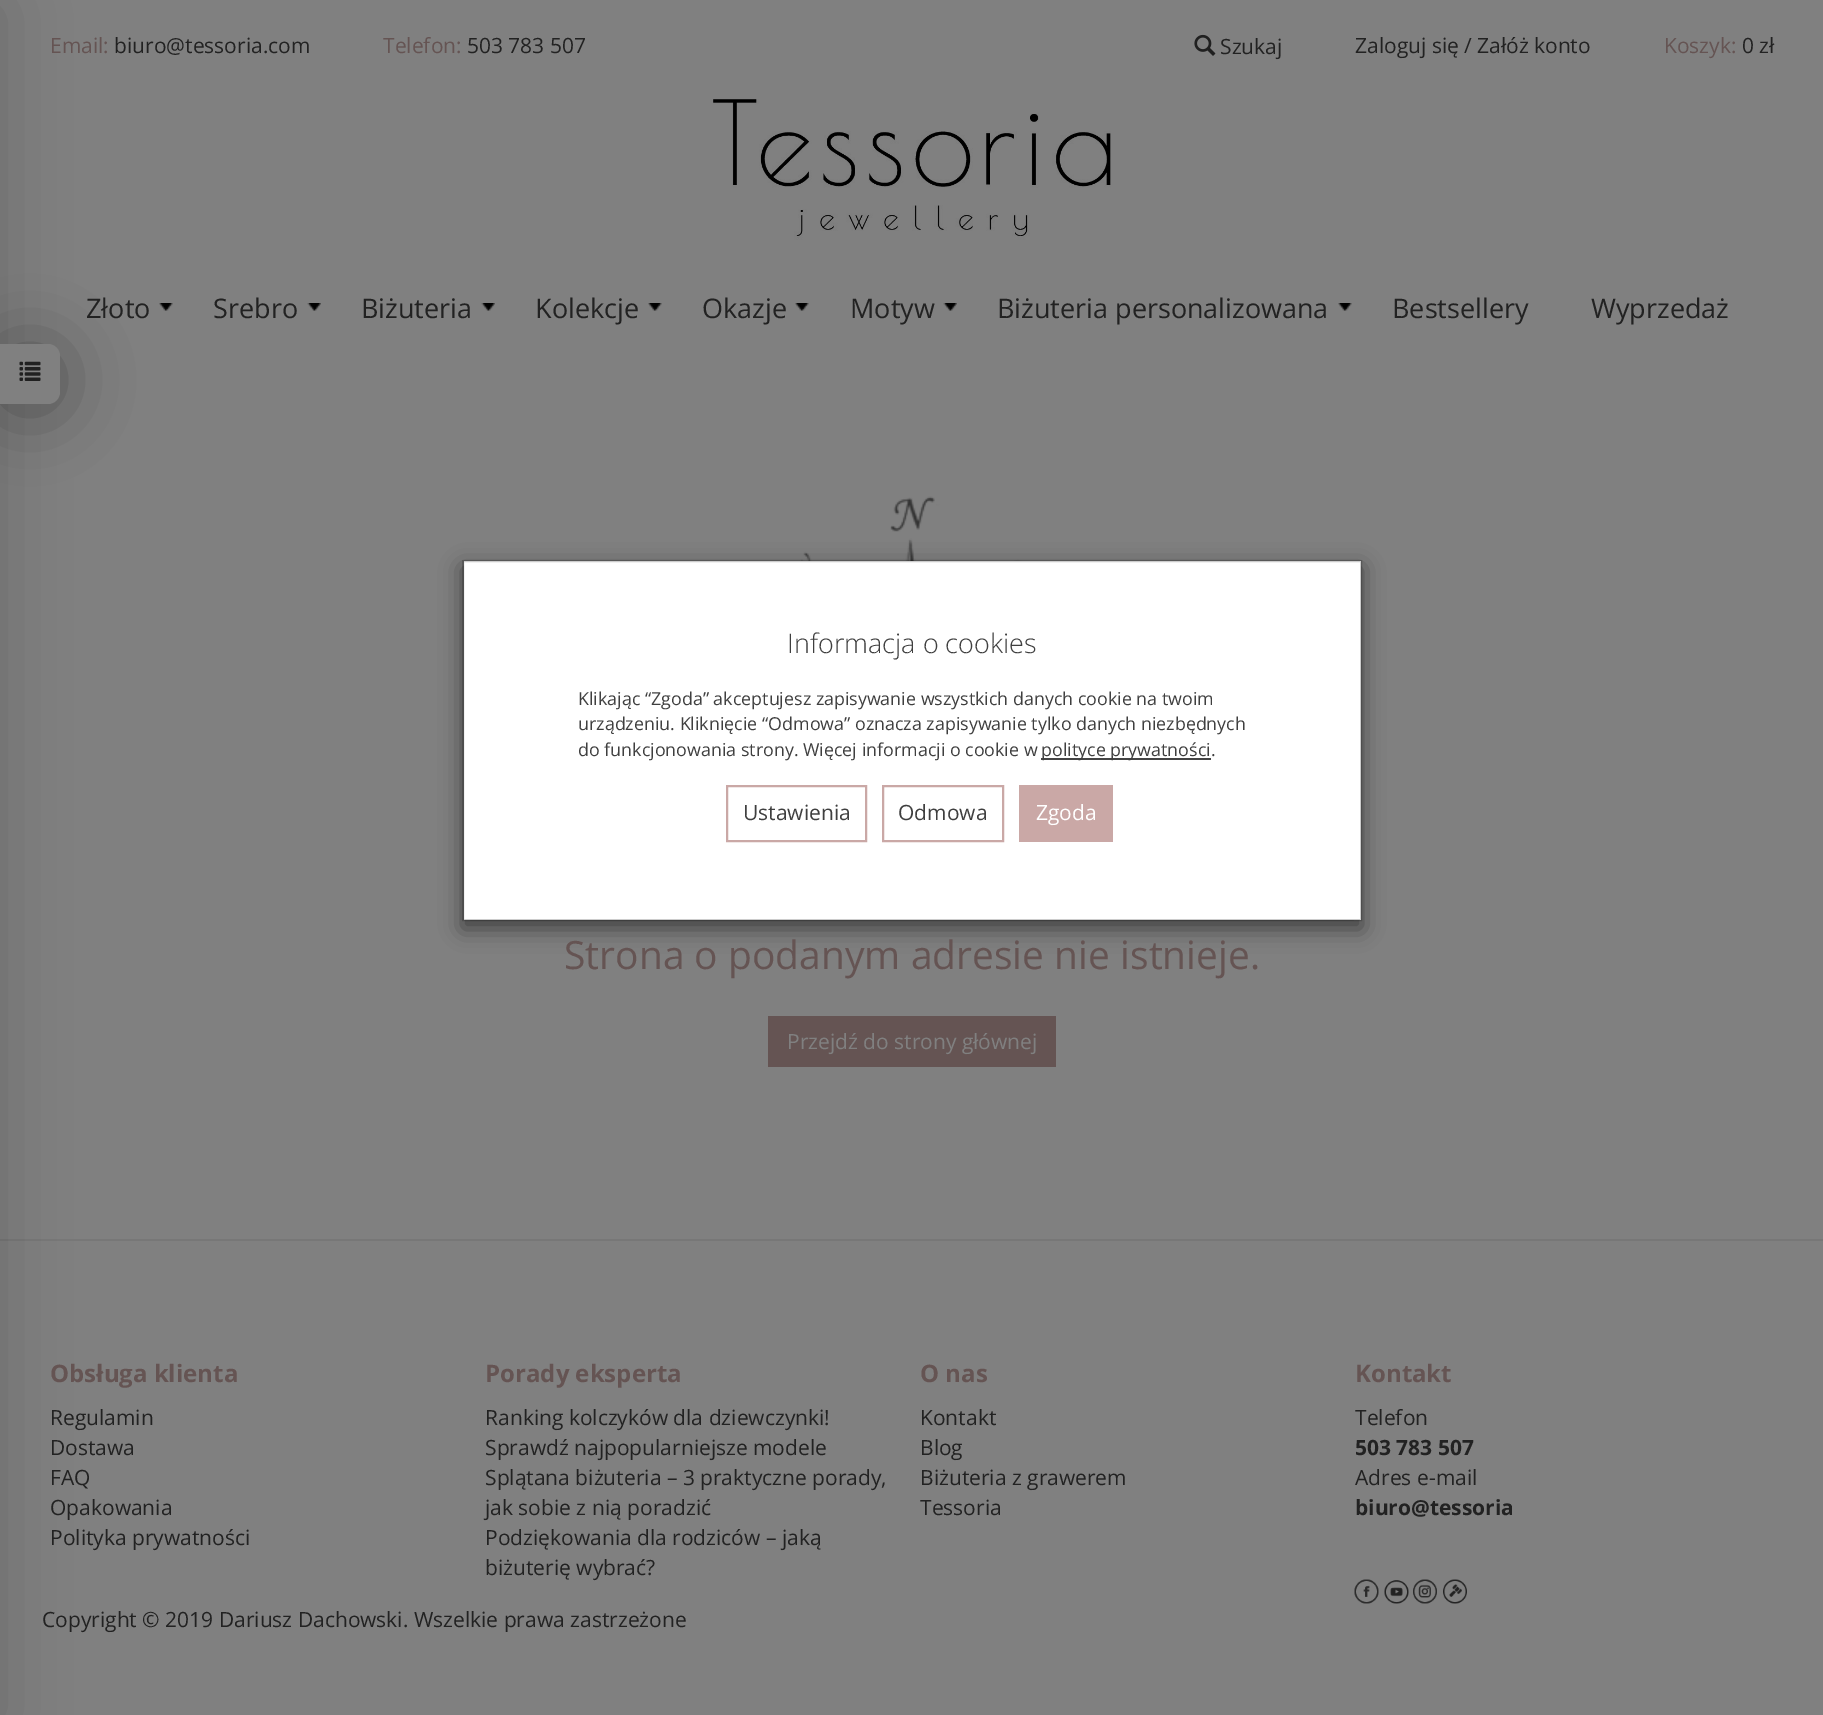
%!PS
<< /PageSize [1823 1715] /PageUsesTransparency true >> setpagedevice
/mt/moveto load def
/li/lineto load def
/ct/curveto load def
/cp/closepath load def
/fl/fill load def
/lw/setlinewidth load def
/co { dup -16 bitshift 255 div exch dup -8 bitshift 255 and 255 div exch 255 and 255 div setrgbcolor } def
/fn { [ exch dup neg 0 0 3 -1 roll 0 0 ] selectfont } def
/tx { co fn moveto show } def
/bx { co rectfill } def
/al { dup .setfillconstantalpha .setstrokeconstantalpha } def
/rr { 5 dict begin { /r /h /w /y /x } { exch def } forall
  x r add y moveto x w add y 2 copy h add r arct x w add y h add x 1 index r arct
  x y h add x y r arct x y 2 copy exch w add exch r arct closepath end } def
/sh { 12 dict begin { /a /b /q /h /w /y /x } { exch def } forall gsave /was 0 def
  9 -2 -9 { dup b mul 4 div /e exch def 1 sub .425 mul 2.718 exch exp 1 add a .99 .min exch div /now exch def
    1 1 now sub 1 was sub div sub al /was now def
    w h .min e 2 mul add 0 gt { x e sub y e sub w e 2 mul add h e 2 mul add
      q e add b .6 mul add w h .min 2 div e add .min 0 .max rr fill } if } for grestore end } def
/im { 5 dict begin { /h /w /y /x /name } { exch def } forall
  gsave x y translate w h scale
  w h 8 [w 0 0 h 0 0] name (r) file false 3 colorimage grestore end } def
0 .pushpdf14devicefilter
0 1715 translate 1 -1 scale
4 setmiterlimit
0 0 1823 1715 16#808080 bx
0 1239 1823 2 16#777777 bx
16#000000 co
-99 6 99 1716 0 33 .17 sh
(media/4.raw) 159 303 14 8 im
0 350 60 60 12 34 .35 sh
16#808080 co
0 344 mt 48 344 li 54.5 344 60 349.5 60 356 ct 60 392 li 60 398.5 54.5 404 48 404 ct 0 404 li cp fl
(media/1.raw) 19 361 22 20 im
(media/2.raw) 1194 34 22 22 im
(media/3.raw) 713 99 398 141 im
(media/5.raw) 307 303 14 8 im
(media/5.raw) 481 303 14 8 im
(media/4.raw) 648 303 14 8 im
(media/4.raw) 795 303 14 8 im
(media/5.raw) 943 303 14 8 im
(media/6.raw) 1338 303 14 8 im
(media/7.raw) 744 496 278 65 im
16#000000 co
462 567 900 362 0 11 .5 sh
464 561 897 359 16#FFFFFF bx
0.2 al
16#000000 co
2 lw
463 561 898 359 rectstroke
1 al
1041 758 170 2 16#444444 bx
16#CAA8A6 co
727 786 139 55 rectstroke
883 786 120 55 rectstroke
1019 785 94 57 16#CAA8A6 bx
768 1016 288 51 16#655453 bx
(media/8.raw) 1354 1579 25 25 im
(media/9.raw) 1384 1580 25 24 im
(media/10.raw) 1413 1579 24 25 im
(media/11.raw) 1443 1579 24 25 im
(Email:) 50 53 /OpenSans-Regular 21 16#655453 tx
(biuro@tessoria.com) 114 53 /OpenSans-Regular 21 16#222222 tx
(Telefon:) 383 53 /OpenSans-Regular 21 16#655453 tx
(503 783 507) 467 53 /OpenSans-Regular 21 16#222222 tx
(Szukaj) 1220 54 /OpenSans-Regular 21 16#222222 tx
(Zaloguj się) 1355 53 /OpenSans-Regular 21 16#222222 tx
(/) 1464 53 /OpenSans-Regular 21 16#222222 tx
(Załóż konto) 1477 53 /OpenSans-Regular 21 16#222222 tx
(Koszyk:) 1664 53 /OpenSans-Regular 21 16#655453 tx
(0 zł) 1742 53 /OpenSans-Regular 21 16#222222 tx
(Złoto) 86 318 /OpenSans-Regular 27 16#222222 tx
(Srebro) 213 318 /OpenSans-Regular 27 16#222222 tx
(Biżuteria) 361 318 /OpenSans-Regular 27 16#222222 tx
(Kolekcje) 535 318 /OpenSans-Regular 27 16#222222 tx
(Okazje) 702 318 /OpenSans-Regular 27 16#222222 tx
(Motyw) 850 318 /OpenSans-Regular 27 16#222222 tx
(Biżuteria personalizowana) 997 318 /OpenSans-Regular 27 16#222222 tx
(Bestsellery) 1392 318 /OpenSans-Regular 27 16#222222 tx
(Wyprzedaż) 1591 318 /OpenSans-Regular 27 16#222222 tx
(Informacja o cookies) 787 653 /OpenSans-Light 27 16#3F3F3F tx
(Klikając “Zgoda” akceptujesz zapisywanie wszystkich danych cookie na twoim) 578 705 /OpenSans-Regular 17.85 16#3F3F3F tx
(urządzeniu. Kliknięcie “Odmowa” oznacza zapisywanie tylko danych niezbędnych) 578 730 /OpenSans-Regular 17.85 16#3F3F3F tx
(do funkcjonowania strony. Więcej informacji o cookie w) 578 756 /OpenSans-Regular 17.85 16#3F3F3F tx
(polityce prywatności) 1041 756 /OpenSans-Regular 17.85 16#3F3F3F tx
(.) 1211 756 /OpenSans-Regular 17.85 16#3F3F3F tx
(Ustawienia) 743 820 /OpenSans-Regular 21 16#3F3F3F tx
(Odmowa) 898 820 /OpenSans-Regular 21 16#3F3F3F tx
(Zgoda) 1036 820 /OpenSans-Regular 21 16#FFFFFF tx
(Strona o podanym adresie nie istnieje.) 564 969 /OpenSans-Regular 39 16#655453 tx
(Przejdź do strony głównej) 787 1049 /OpenSans-Regular 21 16#808080 tx
(Obsługa klienta) 50 1382 /OpenSans-Bold 24 16#655453 tx
(Regulamin) 50 1425 /OpenSans-Regular 21 16#222222 tx
(Dostawa) 50 1455 /OpenSans-Regular 21 16#222222 tx
(FAQ) 50 1485 /OpenSans-Regular 21 16#222222 tx
(Opakowania) 50 1515 /OpenSans-Regular 21 16#222222 tx
(Polityka prywatności) 50 1545 /OpenSans-Regular 21 16#222222 tx
(Porady eksperta) 485 1382 /OpenSans-Bold 24 16#655453 tx
(Ranking kolczyków dla dziewczynki!) 485 1425 /OpenSans-Regular 21 16#222222 tx
(Sprawdź najpopularniejsze modele) 485 1455 /OpenSans-Regular 21 16#222222 tx
(Splątana biżuteria – 3 praktyczne porady,) 485 1485 /OpenSans-Regular 21 16#222222 tx
(jak sobie z nią poradzić) 485 1515 /OpenSans-Regular 21 16#222222 tx
(Podziękowania dla rodziców – jaką) 485 1545 /OpenSans-Regular 21 16#222222 tx
(biżuterię wybrać?) 485 1575 /OpenSans-Regular 21 16#222222 tx
(O nas) 920 1382 /OpenSans-Bold 24 16#655453 tx
(Kontakt) 920 1425 /OpenSans-Regular 21 16#222222 tx
(Blog) 920 1455 /OpenSans-Regular 21 16#222222 tx
(Biżuteria z grawerem) 920 1485 /OpenSans-Regular 21 16#222222 tx
(Tessoria) 920 1515 /OpenSans-Regular 21 16#222222 tx
(Kontakt) 1355 1382 /OpenSans-Bold 24 16#655453 tx
(Telefon) 1355 1425 /OpenSans-Regular 21 16#222222 tx
(503 783 507) 1355 1455 /OpenSans-Bold 21 16#222222 tx
(Adres e-mail) 1355 1485 /OpenSans-Regular 21 16#222222 tx
(biuro@tessoria) 1355 1515 /OpenSans-Bold 21 16#222222 tx
(Copyright © 2019 Dariusz Dachowski. Wszelkie prawa zastrzeżone) 42 1627 /OpenSans-Regular 21 16#222222 tx
.poppdf14devicefilter showpage
